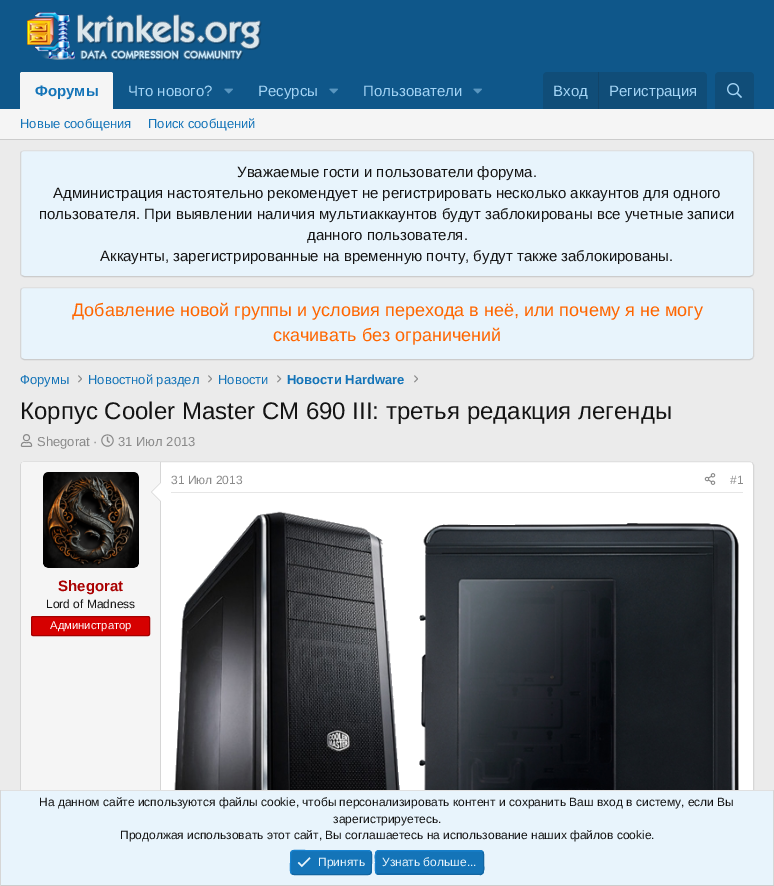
%!PS
<< /PageSize [774 886] >> setpagedevice
/mt/moveto load def
/li/lineto load def
/ct/curveto load def
/cp/closepath load def
/fl/fill load def
/st/stroke load def
/gs/gsave load def
/gr/grestore load def
/co { dup -16 bitshift 255 div exch dup -8 bitshift 255 and 255 div exch 255 and 255 div setrgbcolor } def
/fn { [ exch dup neg 0 0 3 -1 roll 0 0 ] selectfont } def
/tx { co fn moveto show } def
/bx { co rectfill } def
/rr { 5 dict begin { /r /h /w /y /x } { exch def } forall
  x r add y moveto x w add y 2 copy h add r arct x w add y h add x 1 index r arct
  x y h add x y r arct x y 2 copy exch w add exch r arct closepath end } def
/im { 5 dict begin { /h /w /y /x /name } { exch def } forall
  gsave x y translate w h scale
  w h 8 [w 0 0 h 0 0] name (r) file false 3 colorimage grestore end } def
0 886 translate 1 -1 scale
4 setmiterlimit
0 0 774 886 16#EBEBEB bx
0 0 774 109 16#0F578A bx
(media/1.raw) 27 12 235 49 im
16#F5F5F5 co
22 72 mt 111 72 li 112 72 113 73 113 74 ct 113 109 li 20 109 li 20 74 li 20 73 21 72 22 72 ct cp fl
(media/2.raw) 224 88 9 6 im
(media/2.raw) 329 88 9 6 im
(media/2.raw) 473 88 9 6 im
16#104D78 co
547 72 mt 703 72 li 705 72 707 74 707 76 ct 707 109 li 543 109 li 543 76 li 543 74 545 72 547 72 ct cp fl
598 72 1 37 16#114469 bx
16#104D78 co
719 72 mt 750 72 li 752 72 754 74 754 76 ct 754 109 li 715 109 li 715 76 li 715 74 717 72 719 72 ct cp fl
(media/3.raw) 727 83 15 15 im
0 109 774 30 16#F5F5F5 bx
0 139 774 1 16#CCCCCC bx
16#E8F4FC co
20 150 734 127 4 rr fl
16#E0E0E0 co
21.5 151.5 mt 24 150.5 li 750 150.5 li 752.5 151.5 li st
16#D6D6D6 co
752.5 151.5 mt 753 152 753.5 153 753.5 154 ct 753.5 273 li 753.5 274 753 275 752.5 275.5 ct st
16#CCCCCC co
752.5 275.5 mt 750 276.5 li 24 276.5 li 21.5 275.5 li st
16#D6D6D6 co
21.5 275.5 mt 21 275 20.5 274 20.5 273 ct 20.5 154 li 20.5 153 21 152 21.5 151.5 ct st
16#E8F4FC co
20 287 734 73 4 rr fl
16#E0E0E0 co
21.5 288.5 mt 24 287.5 li 750 287.5 li 752.5 288.5 li st
16#D6D6D6 co
752.5 288.5 mt 753.5 290.5 li 753.5 356.5 li 752.5 358.5 li st
16#CCCCCC co
752.5 358.5 mt 750 359.5 li 24 359.5 li 21.5 358.5 li st
16#D6D6D6 co
21.5 358.5 mt 20.5 356.5 li 20.5 290.5 li 21.5 288.5 li st
(media/4.raw) 78 375 4 8 im
(media/4.raw) 208 375 4 8 im
(media/5.raw) 277 375 5 8 im
(media/4.raw) 414 375 4 8 im
(media/6.raw) 20 434 13 13 im
(media/7.raw) 101 434 13 13 im
16#FFFFFF co
20 461 734 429 4 rr fl
16#E0E0E0 co
21.5 462.5 mt 24 461.5 li 750 461.5 li 752.5 462.5 li st
16#D6D6D6 co
752.5 462.5 mt 753.5 465 li 753.5 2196 li 752.5 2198.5 li st
21.5 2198.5 mt 20.5 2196 li 20.5 465 li 21.5 462.5 li st
171 492 572 1 16#E6E6E6 bx
(media/8.raw) 704 473 12 12 im
(media/9.raw) 174 511 565 279 im
16#F5F5F5 co
24 462 mt 161 462 li 161 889 li 24 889 li 22.5 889 21 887.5 21 886 ct 21 465 li 21 463.5 22.5 462 24 462 ct cp fl
160 462 1 328 16#D6D6D6 bx
16#FFFFFF co
43 472 96 96 5 rr fl
(media/10.raw) 43 472 96 96 im
16#D6D6D6 co
161 482 mt 161 502 li 151 492 li cp fl
16#FFFFFF co
161 483 mt 161 501 li 152 492 li cp fl
16#D60000 co
31.5 616.5 118 19 1.5 rr gs fl gr
16#A30000 co
st
1 791 772 94 16#E8F4FC bx
0 790 774 1 16#E0E0E0 bx
773 790 1 96 16#D6D6D6 bx
0 885 774 1 16#CCCCCC bx
0 790 1 96 16#D6D6D6 bx
16#1474B8 co
290 850 82 25 4 rr fl
16#1265A1 co
370.5 851.5 mt 372.5 854 371.5 860 371.5 862.5 ct 371.5 877.5 372 874.5 355.5 874.5 ct 294 874.5 li 291.5 873.5 li st
16#1782CF co
291.5 873.5 mt 289.5 871 290.5 865 290.5 862.5 ct 290.5 847.5 290 850.5 306.5 850.5 ct 368 850.5 li 370.5 851.5 li st
(media/11.raw) 297 857 14 11 im
16#1474B8 co
375 850 109 25 4 rr fl
16#1265A1 co
482.5 851.5 mt 484.5 854 483.5 860 483.5 862.5 ct 483.5 865 485.5 874.5 480 874.5 ct 377.5 874 li 376.5 873.5 li st
16#1782CF co
376.5 873.5 mt 374.5 871 375.5 865 375.5 862.5 ct 375.5 860 373.5 850.5 379 850.5 ct 481.5 851 li 482.5 851.5 li st
(Форумы) 35 96 /LiberationSans-Bold 15 16#1474B8 tx
(Что нового?) 128 96 /LiberationSans-Regular 15 16#A3D4F5 tx
(Ресурсы) 258 96 /LiberationSans-Regular 15 16#A3D4F5 tx
(Пользователи) 363 96 /LiberationSans-Regular 15 16#A3D4F5 tx
(Вход) 553 96 /LiberationSans-Regular 15 16#A3D4F5 tx
(Регистрация) 609 96 /LiberationSans-Regular 15 16#A3D4F5 tx
(Новые сообщения) 20 128 /LiberationSans-Regular 13 16#1474B8 tx
(Поиск сообщений) 148 128 /LiberationSans-Regular 13 16#1474B8 tx
(Уважаемые гости и пользователи форума.) 237 177 /LiberationSans-Regular 15 16#141414 tx
(Администрация настоятельно рекомендует не регистрировать несколько аккаунтов для одного) 53 198 /LiberationSans-Regular 15 16#141414 tx
(пользователя. При выявлении наличия мультиаккаунтов будут заблокированы все учетные записи) 39 219 /LiberationSans-Regular 15 16#141414 tx
(данного пользователя.) 307 240 /LiberationSans-Regular 15 16#141414 tx
(Аккаунты, зарегистрированные на временную почту, будут также заблокированы.) 100 261 /LiberationSans-Regular 15 16#141414 tx
(Добавление новой группы и условия перехода в неё, или почему я не могу) 72 316 /LiberationSans-Regular 18 16#FF6600 tx
(скачивать без ограничений) 273 341 /LiberationSans-Regular 18 16#FF6600 tx
(Форумы) 20 384 /LiberationSans-Regular 13 16#1474B8 tx
(Новостной раздел) 88 384 /LiberationSans-Regular 13 16#1474B8 tx
(Новости) 218 384 /LiberationSans-Regular 13 16#1474B8 tx
(Новости Hardware) 287 384 /LiberationSans-Bold 13 16#1474B8 tx
(Корпус Cooler Master CM 690 III: третья редакция легенды) 20 419 /LiberationSans-Regular 24 16#141414 tx
(Shegorat ·) 37 446 /LiberationSans-Regular 13 16#8A8A8A tx
(31 Июл 2013) 118 446 /LiberationSans-Regular 13 16#8A8A8A tx
(31 Июл 2013) 171 484 /LiberationSans-Regular 12 16#8A8A8A tx
(#1) 730 484 /LiberationSans-Regular 12 16#8A8A8A tx
(Shegorat) 58 591 /LiberationSans-Bold 15 16#AA0000 tx
(Lord of Madness) 46 608 /LiberationSans-Regular 12 16#141414 tx
(Администратор) 50 629 /LiberationSans-Regular 11.25 16#FFFFFF tx
(На данном сайте используются файлы cookie, чтобы персонализировать контент и сохранить Ваш вход в систему, если Вы) 39 806 /LiberationSans-Regular 12 16#141414 tx
(зарегистрируетесь.) 333 823 /LiberationSans-Regular 12 16#141414 tx
(Продолжая использовать этот сайт, Вы соглашаетесь на использование наших файлов cookie.) 120 839 /LiberationSans-Regular 12 16#141414 tx
(Принять) 318 866 /LiberationSans-Regular 12 16#E8F4FC tx
(Узнать больше...) 382 866 /LiberationSans-Regular 12 16#E8F4FC tx
showpage
